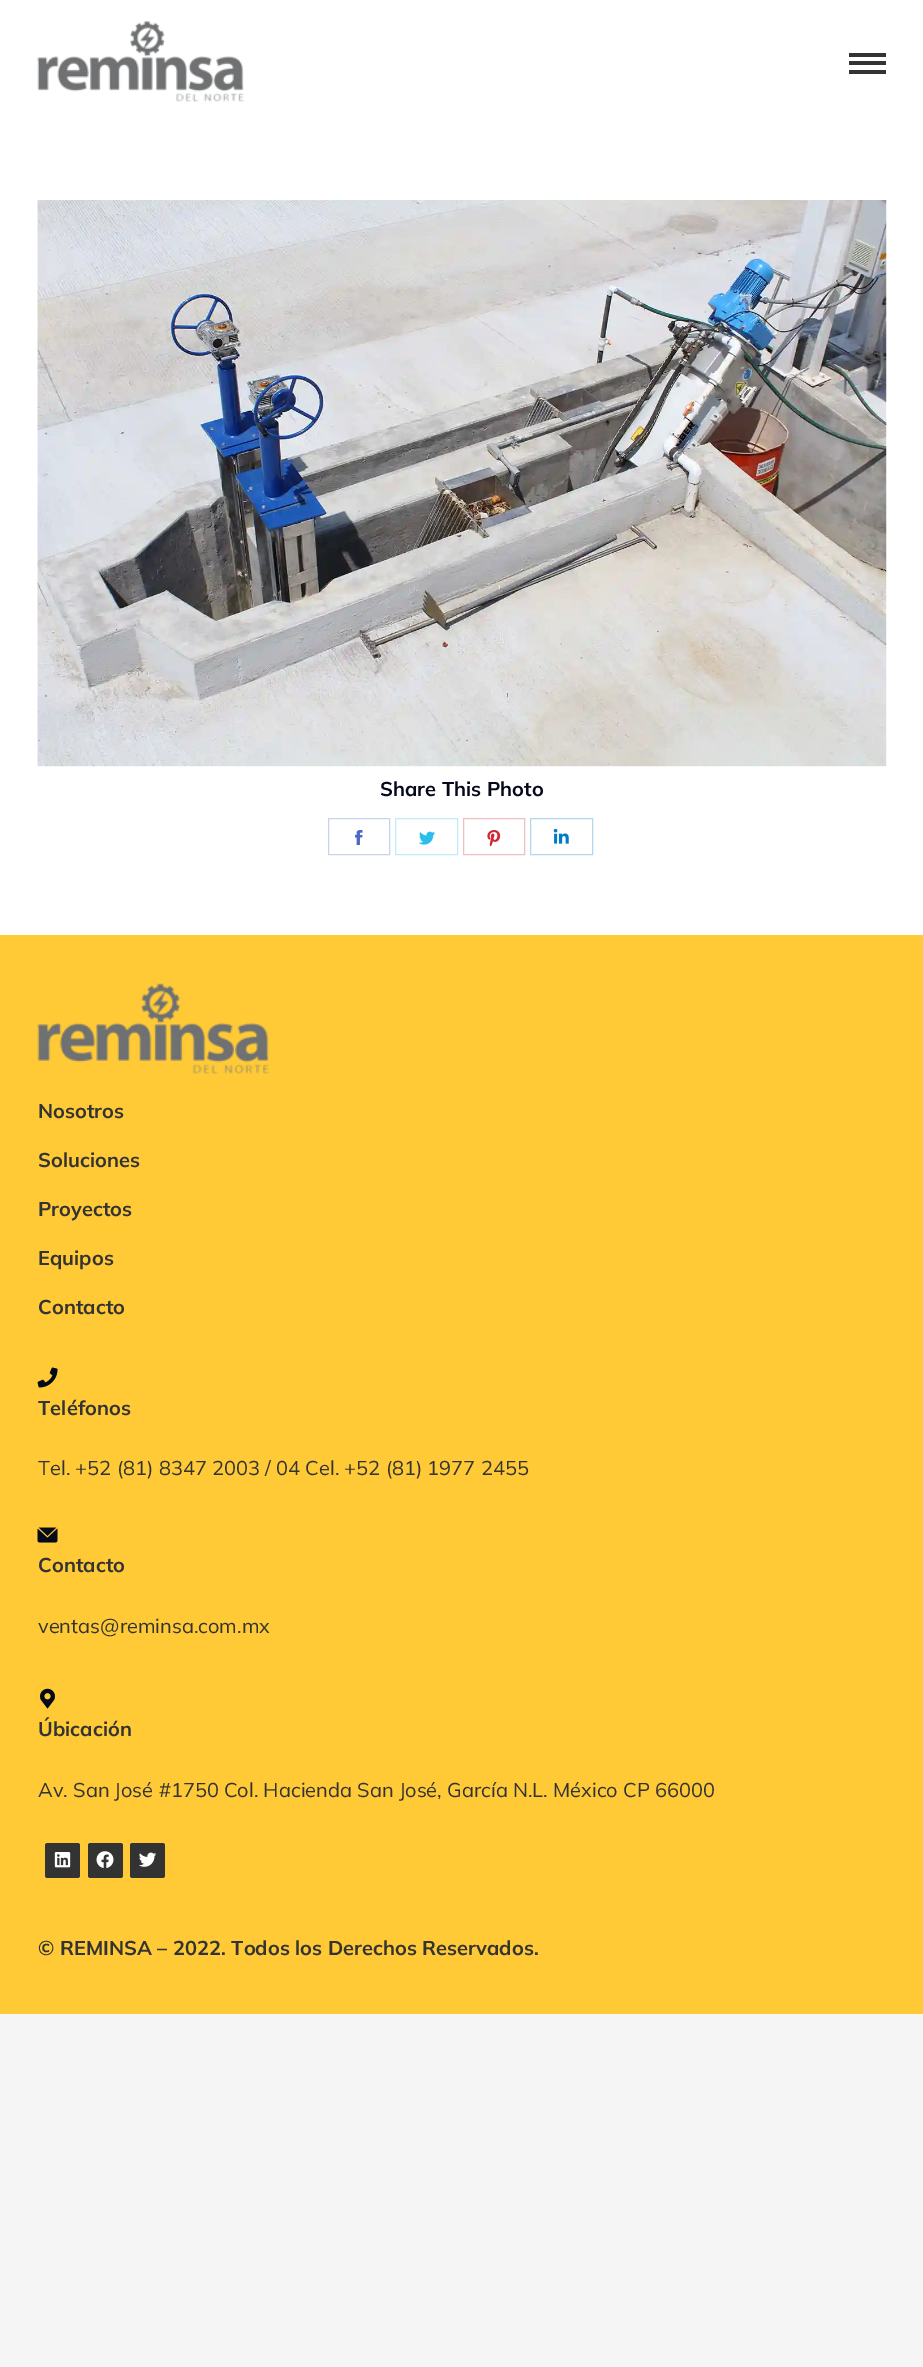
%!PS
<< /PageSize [923 2367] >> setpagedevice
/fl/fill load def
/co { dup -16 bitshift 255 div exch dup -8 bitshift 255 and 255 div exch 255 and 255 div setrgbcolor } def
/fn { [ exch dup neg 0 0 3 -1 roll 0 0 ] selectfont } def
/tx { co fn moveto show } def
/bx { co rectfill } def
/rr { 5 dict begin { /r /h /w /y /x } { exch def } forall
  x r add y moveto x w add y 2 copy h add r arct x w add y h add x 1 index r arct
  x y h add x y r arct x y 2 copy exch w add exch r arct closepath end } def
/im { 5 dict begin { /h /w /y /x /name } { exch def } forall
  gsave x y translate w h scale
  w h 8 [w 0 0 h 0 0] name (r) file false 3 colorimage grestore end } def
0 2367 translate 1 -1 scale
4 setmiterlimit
0 0 923 2367 16#F5F5F5 bx
0 0 923 935 16#FFFFFF bx
(media/1.raw) 37 21 207 81 im
849 53 37 4 16#333333 bx
849 61 37 4 16#333333 bx
849 70 37 4 16#333333 bx
(media/2.raw) 37 200 850 567 im
16#C9D2EE co
328.5 818.5 61 36 rectstroke
(media/3.raw) 355 830 8 15 im
16#BFECF9 co
395.5 818.5 62 36 rectstroke
(media/4.raw) 419 831 16 14 im
16#F1BFC2 co
463.5 818.5 61 36 rectstroke
(media/5.raw) 487 830 14 17 im
16#B3D7EE co
530.5 818.5 62 36 rectstroke
(media/6.raw) 553 828 16 16 im
0 935 923 1079 16#FFCA36 bx
(media/7.raw) 37 983 232 91 im
(media/8.raw) 37 1367 21 21 im
(media/9.raw) 37 1527 21 16 im
(media/10.raw) 40 1688 15 21 im
16#333333 co
45 1843 35 35 2.5 rr fl
(media/11.raw) 54 1852 17 16 im
88 1843 35 35 2.5 rr fl
(media/12.raw) 96 1851 18 17 im
130 1843 35 35 2.5 rr fl
(media/13.raw) 139 1852 18 15 im
(Share This Photo) 380 796 /Mulish-Bold 20 16#040A19 tx
(Nosotros) 38 1118 /Mulish-Bold 20 16#333333 tx
(Soluciones) 38 1167 /Mulish-Bold 20 16#333333 tx
(Proyectos) 38 1216 /Mulish-Bold 20 16#333333 tx
(Equipos) 38 1265 /Mulish-Bold 20 16#333333 tx
(Contacto) 38 1314 /Mulish-Bold 20 16#333333 tx
(Teléfonos) 38 1415 /Mulish-Bold 20 16#333333 tx
(Tel. +52 \(81\) 8347 2003 / 04 Cel. +52 \(81\) 1977 2455) 38 1475 /Mulish-Regular 20 16#333333 tx
(Contacto) 38 1572 /Mulish-Bold 20 16#333333 tx
(ventas@reminsa.com.mx) 38 1633 /Mulish-Regular 20 16#333333 tx
(Úbicación) 38 1736 /Mulish-Bold 20 16#333333 tx
(Av. San José #1750 Col. Hacienda San José, García N.L. México CP 66000) 38 1797 /Mulish-Regular 20 16#333333 tx
(© REMINSA – 2022. Todos los Derechos Reservados.) 38 1955 /Mulish-Bold 20 16#333333 tx
showpage
